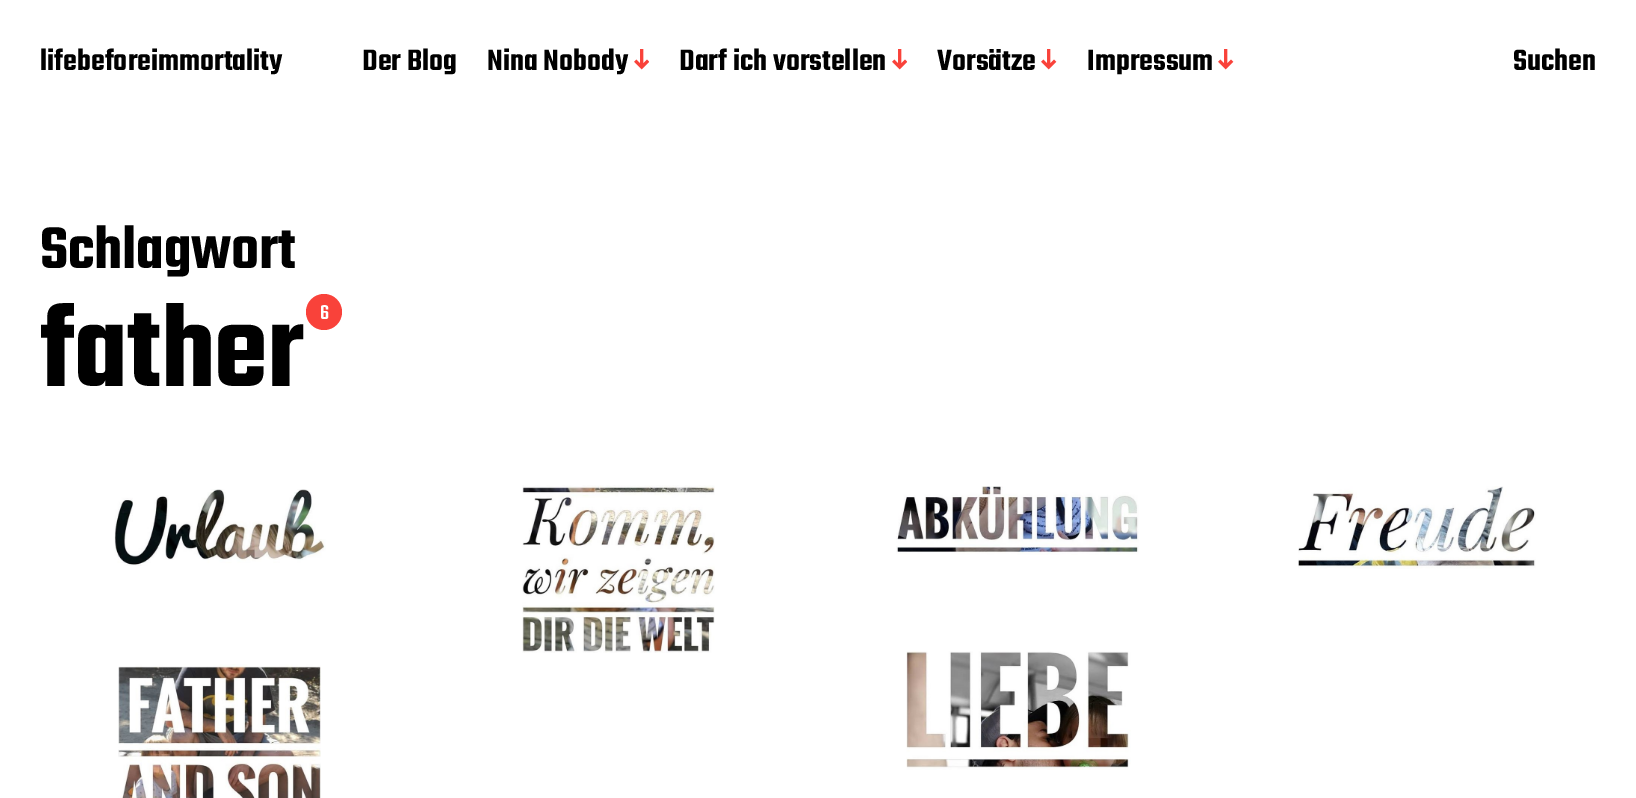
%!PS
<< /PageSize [1636 798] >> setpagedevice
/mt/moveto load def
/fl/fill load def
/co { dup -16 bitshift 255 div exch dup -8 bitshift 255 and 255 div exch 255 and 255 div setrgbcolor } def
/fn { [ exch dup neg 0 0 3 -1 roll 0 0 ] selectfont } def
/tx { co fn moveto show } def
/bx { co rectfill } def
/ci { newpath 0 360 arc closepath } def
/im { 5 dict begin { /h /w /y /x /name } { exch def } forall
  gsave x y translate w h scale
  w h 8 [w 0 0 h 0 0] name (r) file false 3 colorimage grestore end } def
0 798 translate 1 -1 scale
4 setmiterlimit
0 0 1636 798 16#FFFFFF bx
(media/1.raw) 634 49 15 21 im
(media/1.raw) 892 49 15 21 im
(media/2.raw) 1041 49 16 21 im
(media/2.raw) 1218 49 16 21 im
16#F9423A co
324 312 18 ci fl
(media/3.raw) 114 489 212 77 im
(media/4.raw) 522 485 193 168 im
(media/5.raw) 896 486 243 69 im
(media/6.raw) 1298 486 238 83 im
(media/7.raw) 118 664 203 134 im
(media/8.raw) 906 651 225 119 im
(lifebeforeimmortality) 40 70 /Teko-SemiBold 32 16#000000 tx
(Der Blog) 362 70 /Teko-SemiBold 32 16#000000 tx
(Nina Nobody) 487 70 /Teko-SemiBold 32 16#000000 tx
(Darf ich vorstellen) 679 70 /Teko-SemiBold 32 16#000000 tx
(Vorsätze) 937 70 /Teko-SemiBold 32 16#000000 tx
(Impressum) 1087 70 /Teko-SemiBold 32 16#000000 tx
(Suchen) 1513 70 /Teko-SemiBold 32 16#000000 tx
/Teko-SemiBold 64 fn
40 268 mt -.25 0 (Schlagwort) ashow
/Teko-SemiBold 124 fn
40 386 mt -.5 0 (father) ashow
/Teko-Medium 22 fn
16#FFFFFF co
320 319 mt -.5 0 (6) ashow
showpage
